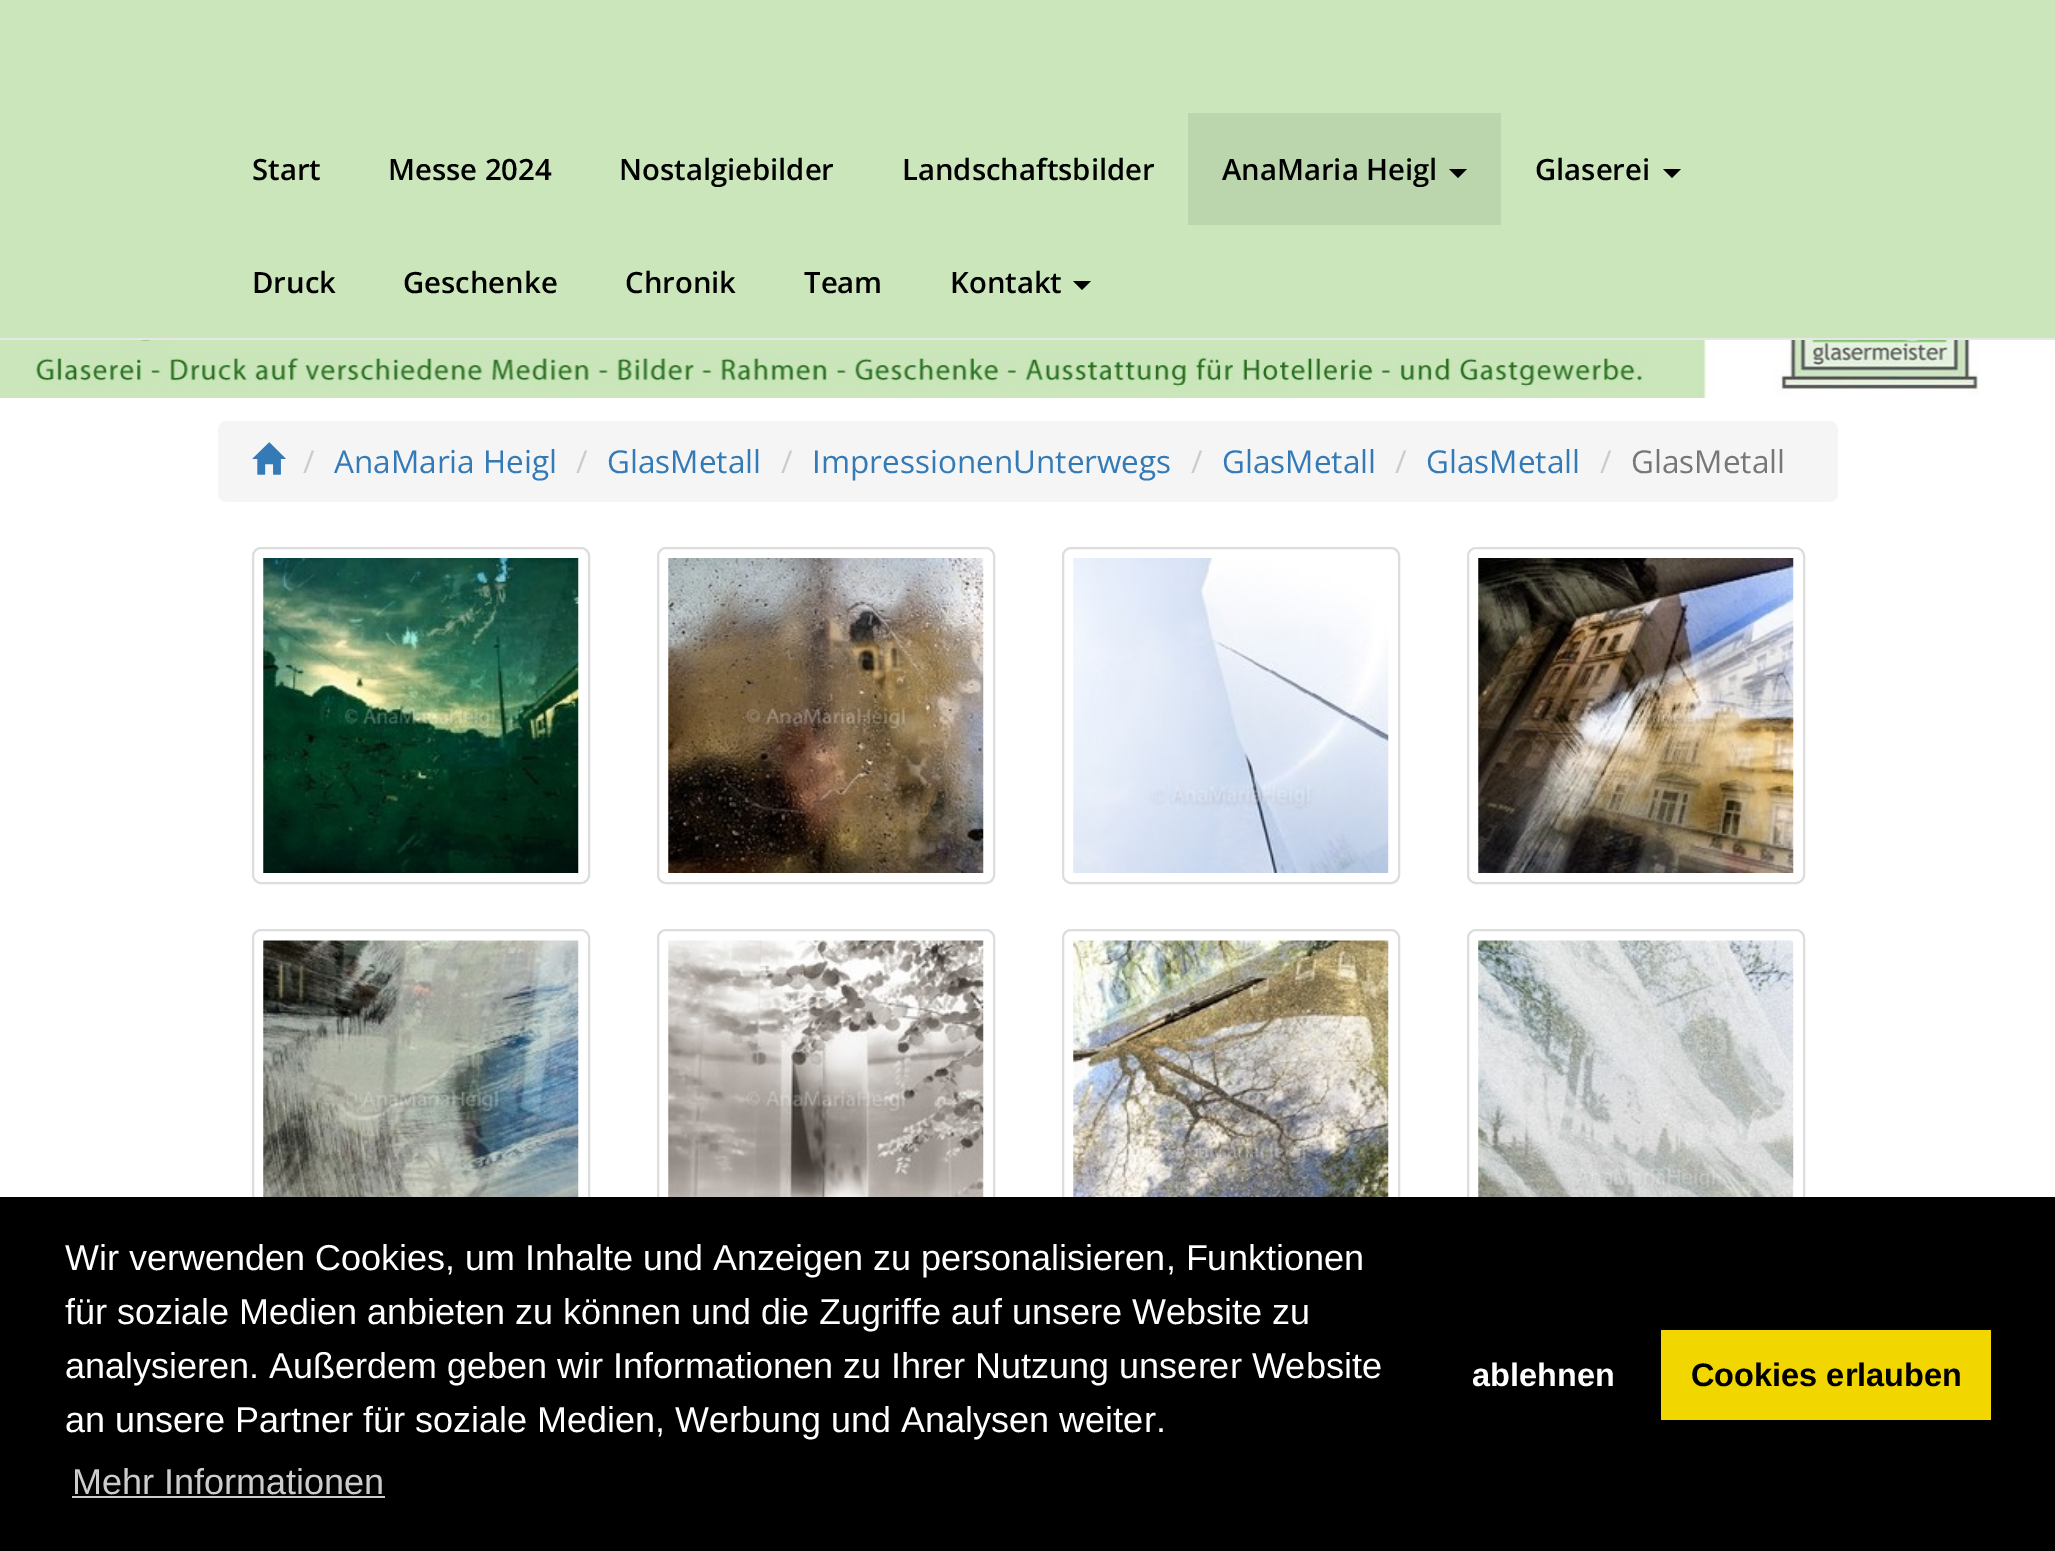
%!PS
<< /PageSize [2055 1551] >> setpagedevice
/mt/moveto load def
/li/lineto load def
/cp/closepath load def
/fl/fill load def
/st/stroke load def
/lw/setlinewidth load def
/co { dup -16 bitshift 255 div exch dup -8 bitshift 255 and 255 div exch 255 and 255 div setrgbcolor } def
/fn { [ exch dup neg 0 0 3 -1 roll 0 0 ] selectfont } def
/tx { co fn moveto show } def
/bx { co rectfill } def
/rr { 5 dict begin { /r /h /w /y /x } { exch def } forall
  x r add y moveto x w add y 2 copy h add r arct x w add y h add x 1 index r arct
  x y h add x y r arct x y 2 copy exch w add exch r arct closepath end } def
/im { 5 dict begin { /h /w /y /x /name } { exch def } forall
  gsave x y translate w h scale
  w h 8 [w 0 0 h 0 0] name (r) file false 3 colorimage grestore end } def
0 1551 translate 1 -1 scale
4 setmiterlimit
0 0 2055 1551 16#FFFFFF bx
0 0 2055 338 16#CBE6BB bx
0 338 2055 2 16#E7E7E7 bx
1188 113 313 112 16#BBD5AC bx
16#000000 co
1449 169 mt 1467 169 li 1458 178 li cp fl
1663 169 mt 1681 169 li 1672 178 li cp fl
1073 281 mt 1091 281 li 1082 290 li cp fl
(media/1.raw) 0 340 1980 58 im
16#F5F5F5 co
218 421 1620 81 9 rr fl
(media/2.raw) 252 442 34 33 im
16#DDDDDD co
2 lw
253 548 336 335 8 rr st
(media/3.raw) 263 558 316 315 im
658 548 336 335 8 rr st
(media/4.raw) 668 558 316 315 im
1063 548 336 335 8 rr st
(media/5.raw) 1073 558 316 315 im
1468 548 336 335 8 rr st
(media/6.raw) 1478 558 316 315 im
253 930 336 336 8 rr st
(media/7.raw) 263 940 316 257 im
658 930 336 336 8 rr st
(media/8.raw) 668 940 316 257 im
1063 930 336 336 8 rr st
(media/9.raw) 1073 940 316 257 im
1468 930 336 336 8 rr st
(media/10.raw) 1478 940 316 257 im
0 1197 2055 354 16#000000 bx
72 1496 313 2 16#CCCCCC bx
1661 1330 330 90 16#F1D600 bx
(Start) 252 180 /OpenSans-SemiBold 29.25 16#000000 tx
(Messe 2024) 388 180 /OpenSans-SemiBold 29.25 16#000000 tx
(Nostalgiebilder) 619 180 /OpenSans-SemiBold 29.25 16#000000 tx
(Landschaftsbilder) 902 180 /OpenSans-SemiBold 29.25 16#000000 tx
(AnaMaria Heigl) 1222 180 /OpenSans-SemiBold 29.25 16#000000 tx
(Glaserei) 1535 180 /OpenSans-SemiBold 29.25 16#000000 tx
(Druck) 252 293 /OpenSans-SemiBold 29.25 16#000000 tx
(Geschenke) 403 293 /OpenSans-SemiBold 29.25 16#000000 tx
(Chronik) 625 293 /OpenSans-SemiBold 29.25 16#000000 tx
(Team) 804 293 /OpenSans-SemiBold 29.25 16#000000 tx
(Kontakt) 950 293 /OpenSans-SemiBold 29.25 16#000000 tx
(/) 303 473 /OpenSans-Regular 31.5 16#CCCCCC tx
(AnaMaria Heigl) 334 473 /OpenSans-Regular 31.5 16#337AB7 tx
(/) 576 473 /OpenSans-Regular 31.5 16#CCCCCC tx
(GlasMetall) 607 473 /OpenSans-Regular 31.5 16#337AB7 tx
(/) 781 473 /OpenSans-Regular 31.5 16#CCCCCC tx
(ImpressionenUnterwegs) 812 473 /OpenSans-Regular 31.5 16#337AB7 tx
(/) 1191 473 /OpenSans-Regular 31.5 16#CCCCCC tx
(GlasMetall) 1222 473 /OpenSans-Regular 31.5 16#337AB7 tx
(/) 1395 473 /OpenSans-Regular 31.5 16#CCCCCC tx
(GlasMetall) 1426 473 /OpenSans-Regular 31.5 16#337AB7 tx
(/) 1600 473 /OpenSans-Regular 31.5 16#CCCCCC tx
(GlasMetall) 1631 473 /OpenSans-Regular 31.5 16#777777 tx
(Wir verwenden Cookies, um Inhalte und Anzeigen zu personalisieren, Funktionen) 65 1270 /LiberationSans-Regular 36 16#FFFFFF tx
(für soziale Medien anbieten zu können und die Zugriffe auf unsere Website zu) 65 1324 /LiberationSans-Regular 36 16#FFFFFF tx
(analysieren. Außerdem geben wir Informationen zu Ihrer Nutzung unserer Website) 65 1378 /LiberationSans-Regular 36 16#FFFFFF tx
(an unsere Partner für soziale Medien, Werbung und Analysen weiter.) 65 1432 /LiberationSans-Regular 36 16#FFFFFF tx
(Mehr Informationen) 72 1494 /LiberationSans-Regular 36 16#CCCCCC tx
(ablehnen) 1472 1386 /LiberationSans-Bold 32.5 16#FFFFFF tx
(Cookies erlauben) 1691 1386 /LiberationSans-Bold 32.5 16#000000 tx
showpage
